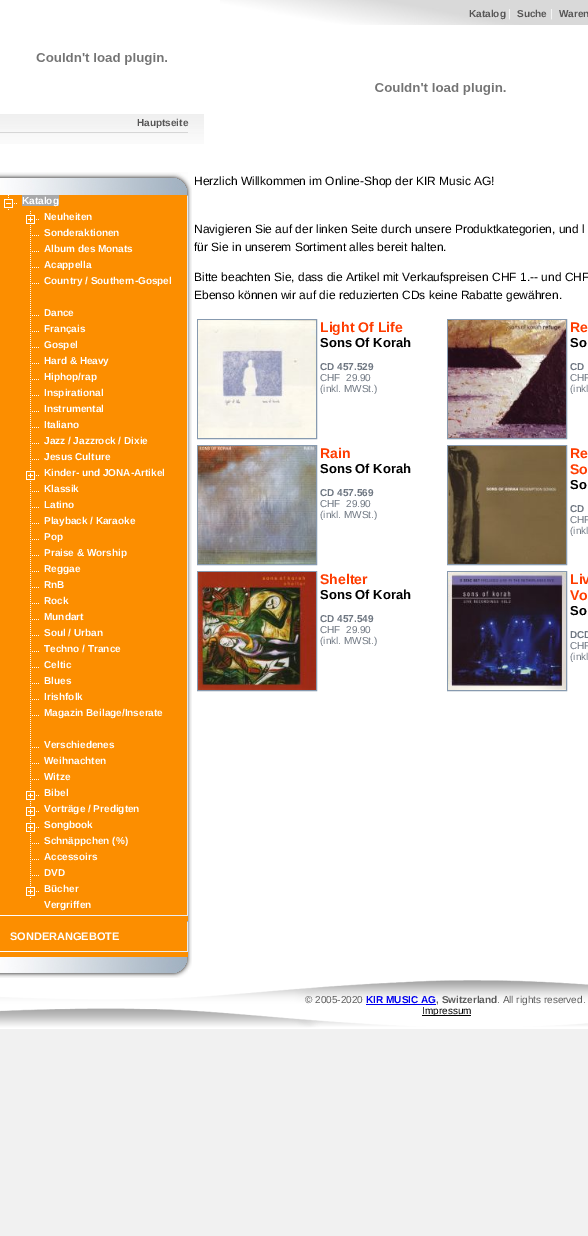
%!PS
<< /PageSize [588 1236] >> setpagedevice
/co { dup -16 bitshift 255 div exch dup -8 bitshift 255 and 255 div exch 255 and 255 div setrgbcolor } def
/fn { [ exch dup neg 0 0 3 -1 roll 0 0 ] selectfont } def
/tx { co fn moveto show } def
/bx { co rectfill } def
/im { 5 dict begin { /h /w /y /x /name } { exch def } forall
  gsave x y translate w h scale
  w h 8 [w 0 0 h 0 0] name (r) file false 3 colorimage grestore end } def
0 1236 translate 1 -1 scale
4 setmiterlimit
0 0 588 1236 16#F1F1F1 bx
0 0 588 1029 16#FFFFFF bx
(media/1.raw) 220 0 368 25 im
(media/2.raw) 375 83 131 12 im
(media/3.raw) 36 53 131 12 im
(media/4.raw) 0 114 204 30 im
(media/5.raw) 0 172 188 23 im
(media/6.raw) 188 180 4 15 im
0 195 188 762 16#FC8E00 bx
(media/7.raw) 4 195 13 15 im
22 195 37 11 16#A9A9A9 bx
(media/8.raw) 26 211 13 15 im
(media/9.raw) 30 227 9 15 im
(media/9.raw) 30 243 9 15 im
(media/9.raw) 30 259 9 15 im
(media/10.raw) 30 275 9 31 im
(media/9.raw) 30 307 9 15 im
(media/9.raw) 30 323 9 15 im
(media/9.raw) 30 339 9 15 im
(media/9.raw) 30 355 9 15 im
(media/9.raw) 30 371 9 15 im
(media/9.raw) 30 387 9 15 im
(media/9.raw) 30 403 9 15 im
(media/9.raw) 30 419 9 15 im
(media/9.raw) 30 435 9 15 im
(media/9.raw) 30 451 9 15 im
(media/8.raw) 26 467 13 15 im
(media/9.raw) 30 483 9 15 im
(media/9.raw) 30 499 9 15 im
(media/9.raw) 30 515 9 15 im
(media/9.raw) 30 531 9 15 im
(media/9.raw) 30 547 9 15 im
(media/9.raw) 30 563 9 15 im
(media/9.raw) 30 579 9 15 im
(media/9.raw) 30 595 9 15 im
(media/9.raw) 30 611 9 15 im
(media/9.raw) 30 627 9 15 im
(media/9.raw) 30 643 9 15 im
(media/9.raw) 30 659 9 15 im
(media/9.raw) 30 675 9 15 im
(media/9.raw) 30 691 9 15 im
(media/10.raw) 30 707 9 31 im
(media/9.raw) 30 739 9 15 im
(media/9.raw) 30 755 9 15 im
(media/9.raw) 30 771 9 15 im
(media/8.raw) 26 787 13 15 im
(media/8.raw) 26 803 13 15 im
(media/8.raw) 26 819 13 15 im
(media/9.raw) 30 835 9 15 im
(media/9.raw) 30 851 9 15 im
(media/9.raw) 30 867 9 15 im
(media/8.raw) 26 883 13 15 im
187 195 1 720 16#E9EDF0 bx
187 195 1 1 16#A4B3C2 bx
(media/11.raw) 0 915 188 1 im
187 921 1 30 16#E9EDF0 bx
187 921 1 1 16#A4B3C2 bx
(media/11.raw) 0 951 188 1 im
(media/12.raw) 188 195 4 762 im
(media/13.raw) 0 957 188 21 im
(media/14.raw) 188 957 4 13 im
16#879AAF co
197.5 319.5 119 119 rectstroke
(media/15.raw) 198 320 118 118 im
447.5 319.5 119 119 rectstroke
(media/16.raw) 448 320 118 118 im
197.5 445.5 119 119 rectstroke
(media/17.raw) 198 446 118 118 im
447.5 445.5 119 119 rectstroke
(media/18.raw) 448 446 118 118 im
197.5 571.5 119 119 rectstroke
(media/19.raw) 198 572 118 118 im
447.5 571.5 119 119 rectstroke
(media/20.raw) 448 572 118 118 im
(media/21.raw) 0 980 588 48 im
366 1004 70 1 16#0000EE bx
422 1015 49 1 16#000000 bx
(Katalog) 469 17 /LiberationSans-Bold 10 16#575656 tx
(|) 508 17 /LiberationSans-Regular 11 16#FFFFFF tx
(Suche) 517 17 /LiberationSans-Bold 10 16#575656 tx
(|) 550 17 /LiberationSans-Regular 11 16#FFFFFF tx
(Waren) 559 17 /LiberationSans-Bold 10 16#575656 tx
(Hauptseite) 137 126 /LiberationSans-Bold 10 16#575656 tx
(Katalog) 22 204 /LiberationSans-Bold 10 16#FFFFFF tx
(Neuheiten) 44 220 /LiberationSans-Bold 10 16#FFFFFF tx
(Sonderaktionen) 44 236 /LiberationSans-Bold 10 16#FFFFFF tx
(Album des Monats) 44 252 /LiberationSans-Bold 10 16#FFFFFF tx
(Acappella) 44 268 /LiberationSans-Bold 10 16#FFFFFF tx
(Country / Southern-Gospel) 44 284 /LiberationSans-Bold 10 16#FFFFFF tx
(Dance) 44 316 /LiberationSans-Bold 10 16#FFFFFF tx
(Français) 44 332 /LiberationSans-Bold 10 16#FFFFFF tx
(Gospel) 44 348 /LiberationSans-Bold 10 16#FFFFFF tx
(Hard & Heavy) 44 364 /LiberationSans-Bold 10 16#FFFFFF tx
(Hiphop/rap) 44 380 /LiberationSans-Bold 10 16#FFFFFF tx
(Inspirational) 44 396 /LiberationSans-Bold 10 16#FFFFFF tx
(Instrumental) 44 412 /LiberationSans-Bold 10 16#FFFFFF tx
(Italiano) 44 428 /LiberationSans-Bold 10 16#FFFFFF tx
(Jazz / Jazzrock / Dixie) 44 444 /LiberationSans-Bold 10 16#FFFFFF tx
(Jesus Culture) 44 460 /LiberationSans-Bold 10 16#FFFFFF tx
(Kinder- und JONA-Artikel) 44 476 /LiberationSans-Bold 10 16#FFFFFF tx
(Klassik) 44 492 /LiberationSans-Bold 10 16#FFFFFF tx
(Latino) 44 508 /LiberationSans-Bold 10 16#FFFFFF tx
(Playback / Karaoke) 44 524 /LiberationSans-Bold 10 16#FFFFFF tx
(Pop) 44 540 /LiberationSans-Bold 10 16#FFFFFF tx
(Praise & Worship) 44 556 /LiberationSans-Bold 10 16#FFFFFF tx
(Reggae) 44 572 /LiberationSans-Bold 10 16#FFFFFF tx
(RnB) 44 588 /LiberationSans-Bold 10 16#FFFFFF tx
(Rock) 44 604 /LiberationSans-Bold 10 16#FFFFFF tx
(Mundart) 44 620 /LiberationSans-Bold 10 16#FFFFFF tx
(Soul / Urban) 44 636 /LiberationSans-Bold 10 16#FFFFFF tx
(Techno / Trance) 44 652 /LiberationSans-Bold 10 16#FFFFFF tx
(Celtic) 44 668 /LiberationSans-Bold 10 16#FFFFFF tx
(Blues) 44 684 /LiberationSans-Bold 10 16#FFFFFF tx
(Irishfolk) 44 700 /LiberationSans-Bold 10 16#FFFFFF tx
(Magazin Beilage/Inserate) 44 716 /LiberationSans-Bold 10 16#FFFFFF tx
(Verschiedenes) 44 748 /LiberationSans-Bold 10 16#FFFFFF tx
(Weihnachten) 44 764 /LiberationSans-Bold 10 16#FFFFFF tx
(Witze) 44 780 /LiberationSans-Bold 10 16#FFFFFF tx
(Bibel) 44 796 /LiberationSans-Bold 10 16#FFFFFF tx
(Vorträge / Predigten) 44 812 /LiberationSans-Bold 10 16#FFFFFF tx
(Songbook) 44 828 /LiberationSans-Bold 10 16#FFFFFF tx
(Schnäppchen \(%\)) 44 844 /LiberationSans-Bold 10 16#FFFFFF tx
(Accessoirs) 44 860 /LiberationSans-Bold 10 16#FFFFFF tx
(DVD) 44 876 /LiberationSans-Bold 10 16#FFFFFF tx
(Bücher) 44 892 /LiberationSans-Bold 10 16#FFFFFF tx
(Vergriffen) 44 908 /LiberationSans-Bold 10 16#FFFFFF tx
(SONDERANGEBOTE) 10 940 /LiberationSans-Bold 11 16#FFFFFF tx
(Herzlich Willkommen im Online-Shop der KIR Music AG!) 194 185 /LiberationSans-Regular 12 16#000000 tx
(Navigieren Sie auf der linken Seite durch unsere Produktkategorien, und l) 194 233 /LiberationSans-Regular 12 16#000000 tx
(für Sie in unserem Sortiment alles bereit halten.) 194 251 /LiberationSans-Regular 12 16#000000 tx
(Bitte beachten Sie, dass die Artikel mit Verkaufspreisen CHF 1.-- und CHF) 194 281 /LiberationSans-Regular 12 16#000000 tx
(Ebenso können wir auf die reduzierten CDs keine Rabatte gewähren.) 194 299 /LiberationSans-Regular 12 16#000000 tx
(Light Of Life) 320 332 /LiberationSans-Bold 14 16#FF3C00 tx
(Sons Of Korah) 320 347 /LiberationSans-Bold 13 16#000000 tx
(CD 457.529) 320 370 /LiberationSans-Bold 10 16#6F7782 tx
(CHF) 320 381 /LiberationSans-Regular 10 16#6F7782 tx
(29.90) 346 381 /LiberationSans-Regular 10 16#6F7782 tx
(\(inkl. MWSt.\)) 320 392 /LiberationSans-Regular 10 16#6F7782 tx
(Re) 570 332 /LiberationSans-Bold 14 16#FF3C00 tx
(So) 570 347 /LiberationSans-Bold 13 16#000000 tx
(CD) 570 370 /LiberationSans-Bold 10 16#6F7782 tx
(CHF) 570 381 /LiberationSans-Regular 10 16#6F7782 tx
(\(inkl) 570 392 /LiberationSans-Regular 10 16#6F7782 tx
(Rain) 320 458 /LiberationSans-Bold 14 16#FF3C00 tx
(Sons Of Korah) 320 473 /LiberationSans-Bold 13 16#000000 tx
(CD 457.569) 320 496 /LiberationSans-Bold 10 16#6F7782 tx
(CHF) 320 507 /LiberationSans-Regular 10 16#6F7782 tx
(29.90) 346 507 /LiberationSans-Regular 10 16#6F7782 tx
(\(inkl. MWSt.\)) 320 518 /LiberationSans-Regular 10 16#6F7782 tx
(Re) 570 458 /LiberationSans-Bold 14 16#FF3C00 tx
(So) 570 474 /LiberationSans-Bold 14 16#FF3C00 tx
(So) 570 489 /LiberationSans-Bold 13 16#000000 tx
(CD) 570 512 /LiberationSans-Bold 10 16#6F7782 tx
(CHF) 570 523 /LiberationSans-Regular 10 16#6F7782 tx
(\(inkl) 570 534 /LiberationSans-Regular 10 16#6F7782 tx
(Shelter) 320 584 /LiberationSans-Bold 14 16#FF3C00 tx
(Sons Of Korah) 320 599 /LiberationSans-Bold 13 16#000000 tx
(CD 457.549) 320 622 /LiberationSans-Bold 10 16#6F7782 tx
(CHF) 320 633 /LiberationSans-Regular 10 16#6F7782 tx
(29.90) 346 633 /LiberationSans-Regular 10 16#6F7782 tx
(\(inkl. MWSt.\)) 320 644 /LiberationSans-Regular 10 16#6F7782 tx
(Liv) 570 584 /LiberationSans-Bold 14 16#FF3C00 tx
(Vo) 570 600 /LiberationSans-Bold 14 16#FF3C00 tx
(So) 570 615 /LiberationSans-Bold 13 16#000000 tx
(DCD) 570 638 /LiberationSans-Bold 10 16#6F7782 tx
(CHF) 570 649 /LiberationSans-Regular 10 16#6F7782 tx
(\(inkl) 570 660 /LiberationSans-Regular 10 16#6F7782 tx
(© 2005-2020) 305 1003 /LiberationSans-Regular 10 16#5C5C5C tx
(KIR MUSIC AG) 366 1003 /LiberationSans-Bold 10 16#0000EE tx
(, Switzerland) 436 1003 /LiberationSans-Bold 10 16#5C5C5C tx
(. All rights reserved.) 497 1003 /LiberationSans-Regular 10 16#5C5C5C tx
(Impressum) 422 1014 /LiberationSans-Regular 10 16#000000 tx
showpage
